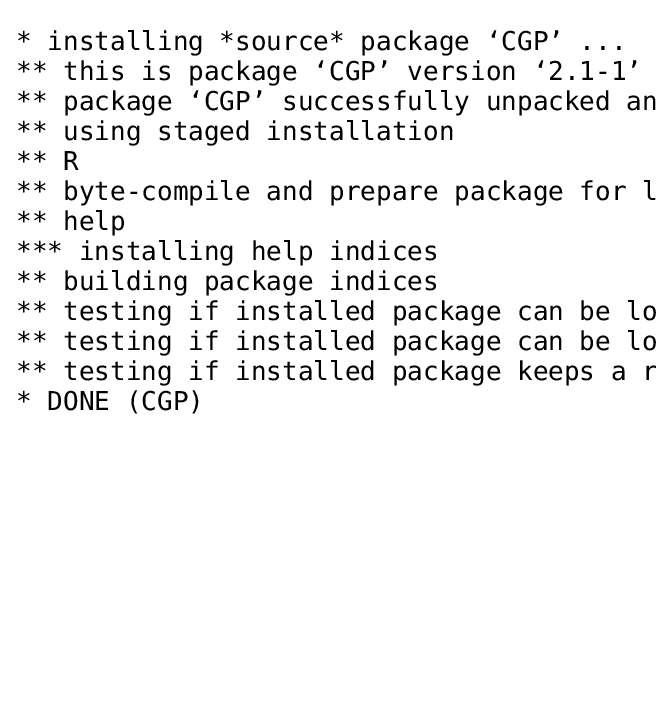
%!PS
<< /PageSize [656 707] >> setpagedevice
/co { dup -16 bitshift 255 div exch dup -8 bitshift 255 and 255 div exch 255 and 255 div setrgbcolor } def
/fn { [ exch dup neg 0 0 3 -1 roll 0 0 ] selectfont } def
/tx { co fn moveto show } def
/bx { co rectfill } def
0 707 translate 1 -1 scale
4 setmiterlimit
0 0 656 707 16#FFFFFF bx
(* installing *source* package ‘CGP’ ...) 16 50 /DejaVuSansMono-Regular 26 16#000000 tx
(** this is package ‘CGP’ version ‘2.1-1’) 16 80 /DejaVuSansMono-Regular 26 16#000000 tx
(** package ‘CGP’ successfully unpacked an) 16 110 /DejaVuSansMono-Regular 26 16#000000 tx
(** using staged installation) 16 140 /DejaVuSansMono-Regular 26 16#000000 tx
(** R) 16 170 /DejaVuSansMono-Regular 26 16#000000 tx
(** byte-compile and prepare package for l) 16 200 /DejaVuSansMono-Regular 26 16#000000 tx
(** help) 16 230 /DejaVuSansMono-Regular 26 16#000000 tx
(*** installing help indices) 16 260 /DejaVuSansMono-Regular 26 16#000000 tx
(** building package indices) 16 290 /DejaVuSansMono-Regular 26 16#000000 tx
(** testing if installed package can be lo) 16 320 /DejaVuSansMono-Regular 26 16#000000 tx
(** testing if installed package can be lo) 16 350 /DejaVuSansMono-Regular 26 16#000000 tx
(** testing if installed package keeps a r) 16 380 /DejaVuSansMono-Regular 26 16#000000 tx
(* DONE \(CGP\)) 16 410 /DejaVuSansMono-Regular 26 16#000000 tx
showpage
